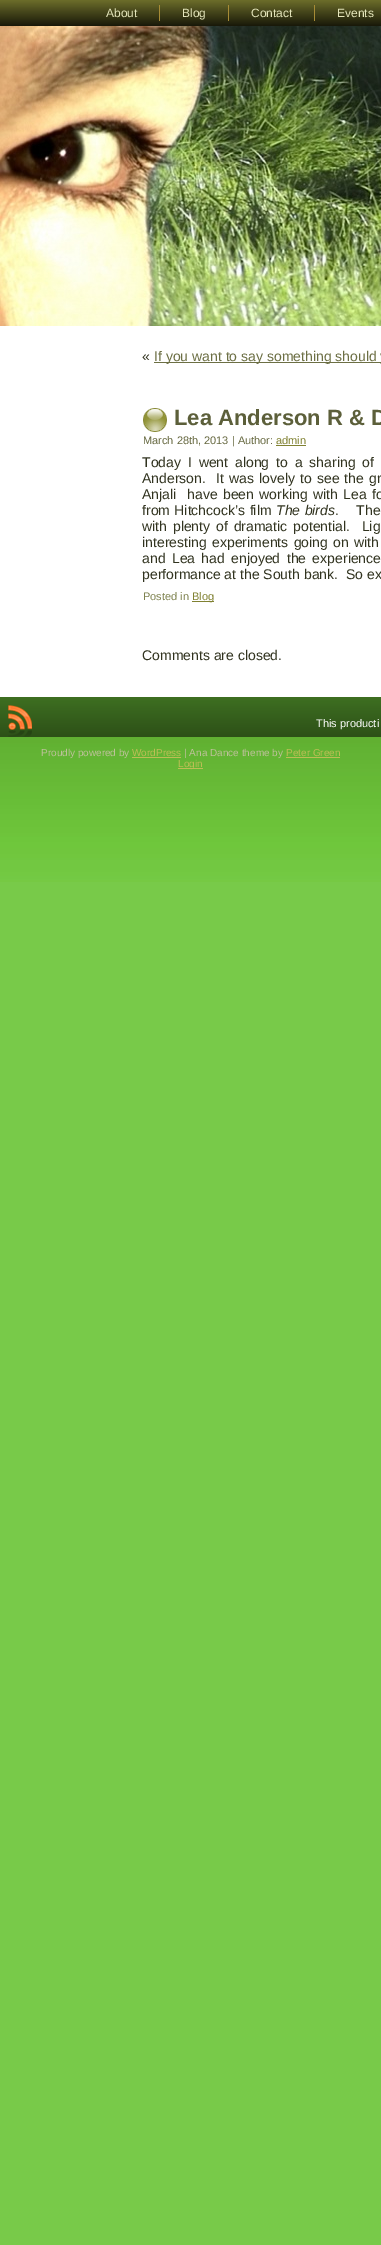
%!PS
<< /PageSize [381 2245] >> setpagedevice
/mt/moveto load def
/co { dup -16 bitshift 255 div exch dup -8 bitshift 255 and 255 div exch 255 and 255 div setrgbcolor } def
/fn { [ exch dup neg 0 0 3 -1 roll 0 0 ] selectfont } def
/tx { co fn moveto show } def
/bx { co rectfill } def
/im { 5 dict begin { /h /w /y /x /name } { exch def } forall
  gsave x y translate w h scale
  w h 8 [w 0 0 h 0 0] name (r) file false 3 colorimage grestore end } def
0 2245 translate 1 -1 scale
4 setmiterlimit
0 0 381 2245 16#78CA49 bx
(media/1.raw) 0 0 381 26 im
159 5 1 16 16#A68B36 bx
228 5 1 16 16#A68B36 bx
314 5 1 16 16#A68B36 bx
(media/2.raw) 0 26 381 300 im
0 326 381 371 16#FFFFFF bx
154 362 227 1 16#6C6F44 bx
(media/3.raw) 143 408 24 24 im
276 445 30 1 16#808131 bx
192 601 22 1 16#808131 bx
(media/4.raw) 0 697 381 40 im
(media/5.raw) 8 705 24 32 im
(media/6.raw) 0 737 381 145 im
132 757 49 1 16#BDBE55 bx
286 757 54 1 16#BDBE55 bx
178 768 25 1 16#BDBE55 bx
(About) 106 17 /LiberationSans-Regular 12 16#E5E6BC tx
(Blog) 182 17 /LiberationSans-Regular 12 16#E5E6BC tx
(Contact) 251 17 /LiberationSans-Regular 12 16#E5E6BC tx
(Events) 337 17 /LiberationSans-Regular 12 16#E5E6BC tx
(«) 142 361 /LiberationSans-Regular 14 16#31331F tx
(If you want to say something should y) 154 361 /LiberationSans-Regular 14 16#6C6F44 tx
(Lea Anderson R & D) 174 425 /LiberationSans-Bold 22 16#5C5F3A tx
(March 28th, 2013 | Author:) 143 444 /LiberationSans-Regular 11 16#666840 tx
(admin) 276 444 /LiberationSans-Regular 11 16#808131 tx
/LiberationSans-Regular 14 fn
16#31331F co
142 467 mt 3 0 32 (Today I went along to a sharing of) widthshow
142 483 mt 1.25 0 32 (Anderson.  It was lovely to see the gr) widthshow
142 499 mt 1.5 0 32 (Anjali  have been working with Lea fo) widthshow
142 515 mt .5 0 32 (from Hitchcock’s film) widthshow
/LiberationSans-Italic 14 fn
276 515 mt .5 0 32 (The birds) widthshow
/LiberationSans-Regular 14 fn
335 515 mt .5 0 32 (.    The) widthshow
142 531 mt 2 0 32 (with plenty of dramatic potential.  Lig) widthshow
142 547 mt 1.5 0 32 (interesting experiments going on with) widthshow
142 563 mt 2.5 0 32 (and Lea had enjoyed the experience) widthshow
(performance at the South bank.  So ex) 142 579 /LiberationSans-Regular 14 16#31331F tx
(Posted in) 143 600 /LiberationSans-Regular 11 16#7E824F tx
(Blog) 192 600 /LiberationSans-Regular 11 16#808131 tx
(Comments are closed.) 142 660 /LiberationSans-Regular 14 16#31331F tx
(This producti) 316 727 /LiberationSans-Regular 11 16#FFFFFF tx
(Proudly powered by) 41 756 /LiberationSans-Regular 10 16#BEC19A tx
(WordPress) 132 756 /LiberationSans-Regular 10 16#BDBE55 tx
(| Ana Dance theme by) 184 756 /LiberationSans-Regular 10 16#BEC19A tx
(Peter Green) 286 756 /LiberationSans-Regular 10 16#BDBE55 tx
(Login) 178 767 /LiberationSans-Regular 10 16#BDBE55 tx
showpage
